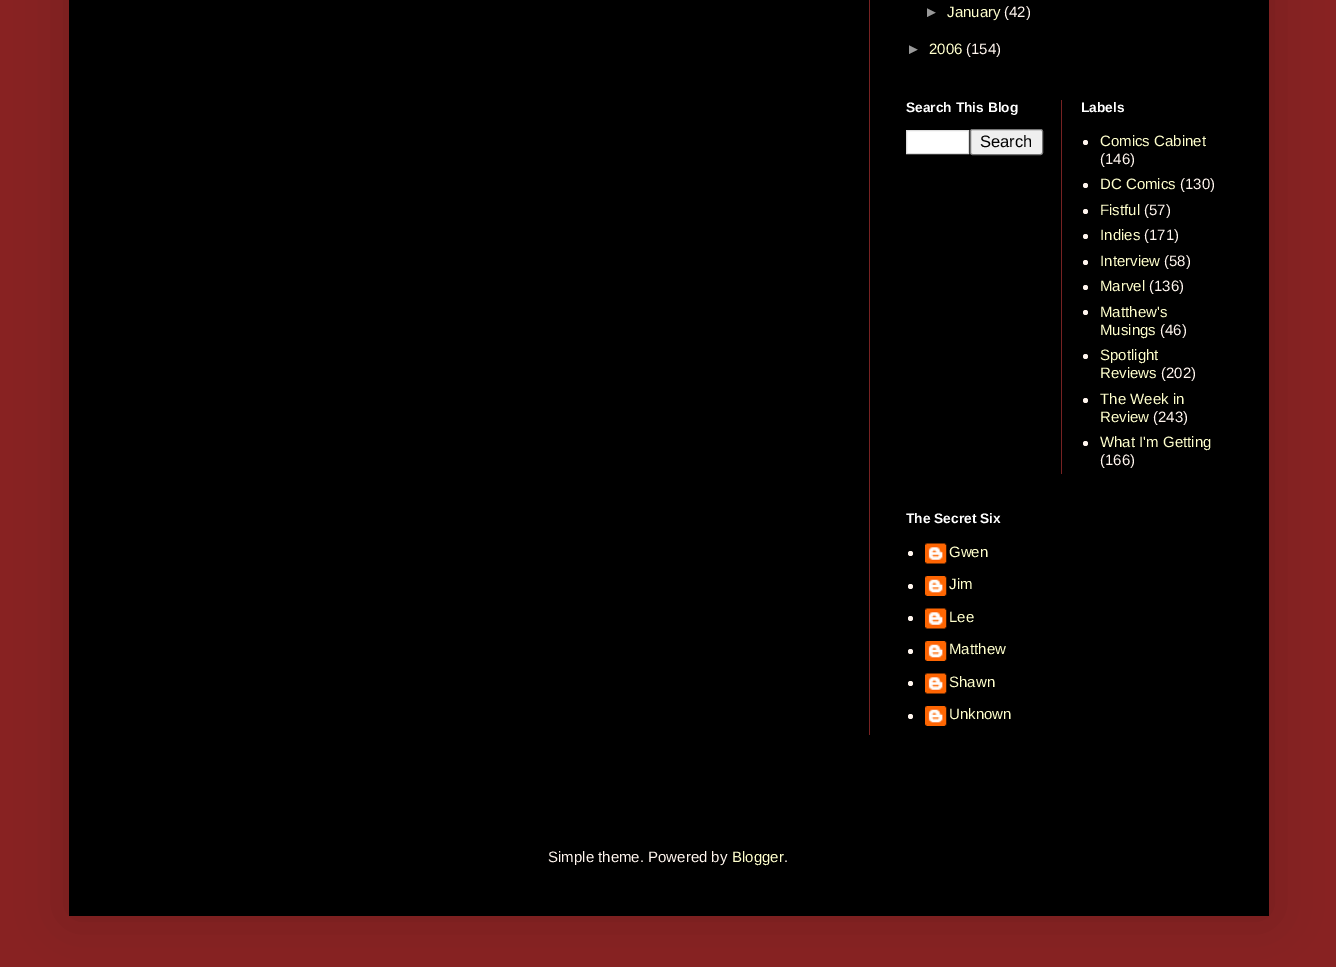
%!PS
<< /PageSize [1336 967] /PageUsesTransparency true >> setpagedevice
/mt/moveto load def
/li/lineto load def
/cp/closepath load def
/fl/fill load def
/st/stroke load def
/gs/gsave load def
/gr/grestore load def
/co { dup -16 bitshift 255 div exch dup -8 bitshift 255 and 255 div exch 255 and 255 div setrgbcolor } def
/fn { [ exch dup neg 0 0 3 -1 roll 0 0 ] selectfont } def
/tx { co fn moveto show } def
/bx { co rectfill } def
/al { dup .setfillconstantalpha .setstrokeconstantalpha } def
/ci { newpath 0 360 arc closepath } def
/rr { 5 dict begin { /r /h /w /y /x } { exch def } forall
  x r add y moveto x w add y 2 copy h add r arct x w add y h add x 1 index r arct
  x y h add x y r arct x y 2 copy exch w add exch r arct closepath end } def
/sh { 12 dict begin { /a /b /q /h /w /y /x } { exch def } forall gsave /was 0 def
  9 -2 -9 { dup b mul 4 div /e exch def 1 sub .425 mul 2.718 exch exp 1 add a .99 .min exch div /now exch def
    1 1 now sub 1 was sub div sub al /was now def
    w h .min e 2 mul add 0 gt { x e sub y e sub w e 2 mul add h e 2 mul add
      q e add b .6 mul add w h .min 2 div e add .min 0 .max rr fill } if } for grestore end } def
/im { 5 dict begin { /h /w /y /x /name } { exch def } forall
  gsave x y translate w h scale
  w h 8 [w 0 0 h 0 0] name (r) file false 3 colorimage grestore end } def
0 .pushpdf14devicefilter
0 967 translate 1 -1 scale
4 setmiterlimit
0 0 1336 967 16#882222 bx
16#000000 co
69 -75 1200 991 0 25 .15 sh
69 0 1200 916 16#000000 bx
869 0 1 735 16#772222 bx
16#FFFFFF co
906.5 130.5 mt 968.5 130.5 li 968.5 153.5 li 906.5 153.5 li cp gs fl gr
16#DDDDDD co
st
16#EFEFEF co
970.5 129.5 72 25 2 rr gs fl gr
16#767676 co
st
1061 100 1 374 16#772222 bx
16#FFF5EE co
1085.5 142.5 2.5 ci fl
1085.5 185.5 2.5 ci fl
1085.5 211.5 2.5 ci fl
1085.5 236.5 2.5 ci fl
1085.5 262.5 2.5 ci fl
1085.5 287.5 2.5 ci fl
1085.5 312.5 2.5 ci fl
1085.5 356.5 2.5 ci fl
1085.5 400.5 2.5 ci fl
1085.5 443.5 2.5 ci fl
910.5 553.5 2.5 ci fl
(media/1.raw) 925 543 22 21 im
910.5 586.5 2.5 ci fl
(media/2.raw) 925 576 22 20 im
910.5 618.5 2.5 ci fl
(media/1.raw) 925 608 22 21 im
910.5 651.5 2.5 ci fl
(media/2.raw) 925 641 22 20 im
910.5 683.5 2.5 ci fl
(media/1.raw) 925 673 22 21 im
910.5 716.5 2.5 ci fl
(media/2.raw) 925 706 22 20 im
(►) 924 17 /LiberationSans-Regular 15 16#999999 tx
(January) 947 17 /LiberationSans-Regular 15 16#FFFFCC tx
(\(42\)) 1004 17 /LiberationSans-Regular 15 16#FFF5EE tx
(►) 906 54 /LiberationSans-Regular 15 16#999999 tx
(2006) 929 54 /LiberationSans-Regular 15 16#FFFFCC tx
(\(154\)) 966 54 /LiberationSans-Regular 15 16#FFF5EE tx
(Search This Blog) 906 112 /LiberationSans-Bold 13.75 16#FFFFFF tx
(Search) 980 147 /LiberationSans-Regular 16.5 16#000000 tx
(Labels) 1081 112 /LiberationSans-Bold 13.75 16#FFFFFF tx
(Comics Cabinet) 1100 146 /LiberationSans-Regular 15 16#FFFFCC tx
(\(146\)) 1100 164 /LiberationSans-Regular 15 16#FFF5EE tx
(DC Comics) 1100 189 /LiberationSans-Regular 15 16#FFFFCC tx
(\(130\)) 1180 189 /LiberationSans-Regular 15 16#FFF5EE tx
(Fistful) 1100 215 /LiberationSans-Regular 15 16#FFFFCC tx
(\(57\)) 1144 215 /LiberationSans-Regular 15 16#FFF5EE tx
(Indies) 1100 240 /LiberationSans-Regular 15 16#FFFFCC tx
(\(171\)) 1144 240 /LiberationSans-Regular 15 16#FFF5EE tx
(Interview) 1100 266 /LiberationSans-Regular 15 16#FFFFCC tx
(\(58\)) 1164 266 /LiberationSans-Regular 15 16#FFF5EE tx
(Marvel) 1100 291 /LiberationSans-Regular 15 16#FFFFCC tx
(\(136\)) 1149 291 /LiberationSans-Regular 15 16#FFF5EE tx
(Matthew's) 1100 317 /LiberationSans-Regular 15 16#FFFFCC tx
(Musings) 1100 335 /LiberationSans-Regular 15 16#FFFFCC tx
(\(46\)) 1160 335 /LiberationSans-Regular 15 16#FFF5EE tx
(Spotlight) 1100 360 /LiberationSans-Regular 15 16#FFFFCC tx
(Reviews) 1100 378 /LiberationSans-Regular 15 16#FFFFCC tx
(\(202\)) 1161 378 /LiberationSans-Regular 15 16#FFF5EE tx
(The Week in) 1100 404 /LiberationSans-Regular 15 16#FFFFCC tx
(Review) 1100 422 /LiberationSans-Regular 15 16#FFFFCC tx
(\(243\)) 1153 422 /LiberationSans-Regular 15 16#FFF5EE tx
(What I'm Getting) 1100 447 /LiberationSans-Regular 15 16#FFFFCC tx
(\(166\)) 1100 465 /LiberationSans-Regular 15 16#FFF5EE tx
(The Secret Six) 906 523 /LiberationSans-Bold 13.75 16#FFFFFF tx
(Gwen) 949 557 /LiberationSans-Regular 15 16#FFFFCC tx
(Jim) 949 589 /LiberationSans-Regular 15 16#FFFFCC tx
(Lee) 949 622 /LiberationSans-Regular 15 16#FFFFCC tx
(Matthew) 949 654 /LiberationSans-Regular 15 16#FFFFCC tx
(Shawn) 949 687 /LiberationSans-Regular 15 16#FFFFCC tx
(Unknown) 949 719 /LiberationSans-Regular 15 16#FFFFCC tx
(Simple theme. Powered by) 548 862 /LiberationSans-Regular 15 16#FFF5EE tx
(Blogger) 732 862 /LiberationSans-Regular 15 16#FFFFCC tx
(.) 784 862 /LiberationSans-Regular 15 16#FFF5EE tx
.poppdf14devicefilter showpage
